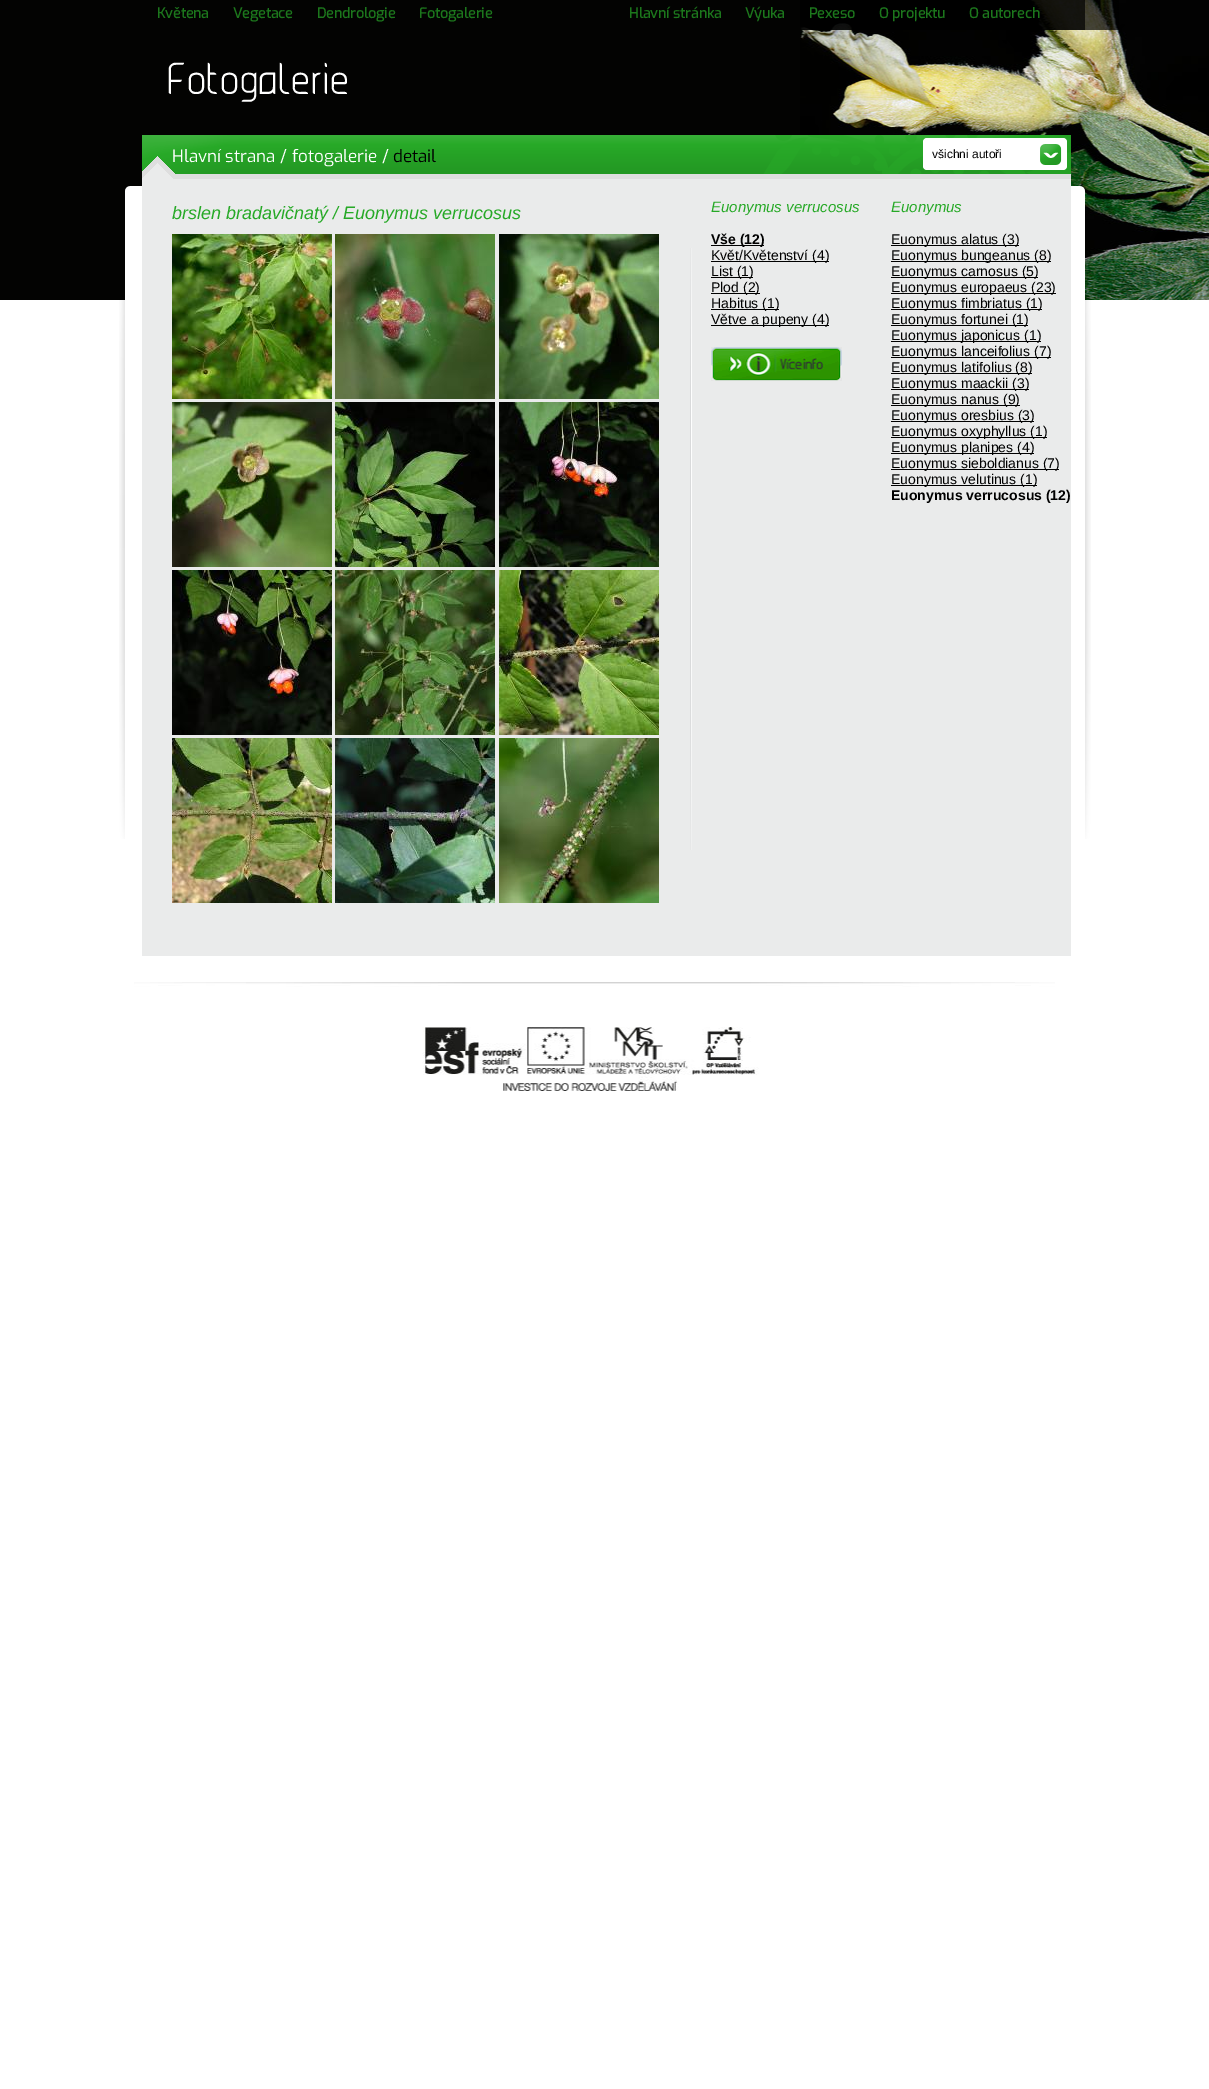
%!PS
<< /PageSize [1209 2089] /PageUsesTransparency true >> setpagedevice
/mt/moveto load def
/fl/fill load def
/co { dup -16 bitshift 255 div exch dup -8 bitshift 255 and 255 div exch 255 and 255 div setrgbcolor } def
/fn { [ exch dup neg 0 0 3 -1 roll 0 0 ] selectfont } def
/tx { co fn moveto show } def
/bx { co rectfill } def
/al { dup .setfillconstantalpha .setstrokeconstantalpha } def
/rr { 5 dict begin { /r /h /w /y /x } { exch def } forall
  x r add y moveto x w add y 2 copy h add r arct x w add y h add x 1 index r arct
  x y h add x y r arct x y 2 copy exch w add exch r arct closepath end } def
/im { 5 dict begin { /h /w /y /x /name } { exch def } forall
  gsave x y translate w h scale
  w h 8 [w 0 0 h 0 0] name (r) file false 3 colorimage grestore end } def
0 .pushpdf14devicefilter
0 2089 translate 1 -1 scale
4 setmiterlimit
0 0 1209 2089 16#FFFFFF bx
0 0 800 300 16#030302 bx
(media/1.raw) 800 0 409 300 im
0.7 al
800 0 319 30 16#000000 bx
800 0 285 30 16#000000 bx
1 al
(media/2.raw) 119 186 972 653 im
142 179 929 777 16#EAEBEB bx
(media/3.raw) 142 135 929 44 im
16#FFFFFF co
923 138 144 32 4 rr fl
(media/4.raw) 1040 144 22 21 im
(media/5.raw) 690 248 2 602 im
(media/6.raw) 172 234 160 165 im
(media/7.raw) 335 234 160 165 im
(media/8.raw) 499 234 160 165 im
(media/9.raw) 172 402 160 165 im
(media/10.raw) 335 402 160 165 im
(media/11.raw) 499 402 160 165 im
(media/12.raw) 172 570 160 165 im
(media/13.raw) 335 570 160 165 im
(media/14.raw) 499 570 160 165 im
(media/15.raw) 172 738 160 165 im
(media/16.raw) 335 738 160 165 im
(media/17.raw) 499 738 160 165 im
711 245 53 1 16#000000 bx
711 261 118 1 16#000000 bx
711 277 42 1 16#000000 bx
711 293 49 1 16#000000 bx
711 309 68 1 16#000000 bx
711 325 118 1 16#000000 bx
(media/18.raw) 711 347 131 34 im
891 245 128 1 16#000000 bx
891 261 160 1 16#000000 bx
891 277 147 1 16#000000 bx
891 293 165 1 16#000000 bx
891 309 151 1 16#000000 bx
891 325 137 1 16#000000 bx
891 341 150 1 16#000000 bx
891 357 160 1 16#000000 bx
891 373 141 1 16#000000 bx
891 389 138 1 16#000000 bx
891 405 129 1 16#000000 bx
891 421 143 1 16#000000 bx
891 437 156 1 16#000000 bx
891 453 143 1 16#000000 bx
891 469 168 1 16#000000 bx
891 485 146 1 16#000000 bx
(media/19.raw) 134 982 921 109 im
(Květena) 157 18 /Exo-Bold 14 16#1C771C tx
(Vegetace) 233 18 /Exo-Bold 14 16#1C771C tx
(Dendrologie) 317 18 /Exo-Bold 14 16#1C771C tx
(Fotogalerie) 419 18 /Exo-Bold 14 16#1C771C tx
(Hlavní stránka) 629 18 /Exo-Bold 14 16#1C771C tx
(Výuka) 745 18 /Exo-Bold 14 16#1C771C tx
(Pexeso) 809 18 /Exo-Bold 14 16#1C771C tx
(O projektu) 879 18 /Exo-Bold 14 16#1C771C tx
(O autorech) 969 18 /Exo-Bold 14 16#1C771C tx
/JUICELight-Light 37 fn
16#FFFFFF co
165 94 mt -3 0 (Fotogalerie) ashow
(Hlavní strana / fotogalerie /) 172 162 /Exo-Regular 17 16#FFFFFF tx
(detail) 393 162 /Exo-Regular 17 16#000000 tx
(všichni autoři) 932 158 /LiberationSans-Regular 12 16#000000 tx
(brslen bradavičnatý / Euonymus verrucosus) 172 219 /LiberationSans-Italic 18 16#27A927 tx
(Euonymus verrucosus) 711 212 /LiberationSans-Italic 15 16#27A927 tx
(Vše \(12\)) 711 244 /LiberationSans-Bold 14 16#000000 tx
(Květ/Květenství \(4\)) 711 260 /LiberationSans-Regular 14 16#000000 tx
(List \(1\)) 711 276 /LiberationSans-Regular 14 16#000000 tx
(Plod \(2\)) 711 292 /LiberationSans-Regular 14 16#000000 tx
(Habitus \(1\)) 711 308 /LiberationSans-Regular 14 16#000000 tx
(Větve a pupeny \(4\)) 711 324 /LiberationSans-Regular 14 16#000000 tx
(Euonymus) 891 212 /LiberationSans-Italic 15 16#27A927 tx
(Euonymus alatus \(3\)) 891 244 /LiberationSans-Regular 14 16#000000 tx
(Euonymus bungeanus \(8\)) 891 260 /LiberationSans-Regular 14 16#000000 tx
(Euonymus carnosus \(5\)) 891 276 /LiberationSans-Regular 14 16#000000 tx
(Euonymus europaeus \(23\)) 891 292 /LiberationSans-Regular 14 16#000000 tx
(Euonymus fimbriatus \(1\)) 891 308 /LiberationSans-Regular 14 16#000000 tx
(Euonymus fortunei \(1\)) 891 324 /LiberationSans-Regular 14 16#000000 tx
(Euonymus japonicus \(1\)) 891 340 /LiberationSans-Regular 14 16#000000 tx
(Euonymus lanceifolius \(7\)) 891 356 /LiberationSans-Regular 14 16#000000 tx
(Euonymus latifolius \(8\)) 891 372 /LiberationSans-Regular 14 16#000000 tx
(Euonymus maackii \(3\)) 891 388 /LiberationSans-Regular 14 16#000000 tx
(Euonymus nanus \(9\)) 891 404 /LiberationSans-Regular 14 16#000000 tx
(Euonymus oresbius \(3\)) 891 420 /LiberationSans-Regular 14 16#000000 tx
(Euonymus oxyphyllus \(1\)) 891 436 /LiberationSans-Regular 14 16#000000 tx
(Euonymus planipes \(4\)) 891 452 /LiberationSans-Regular 14 16#000000 tx
(Euonymus sieboldianus \(7\)) 891 468 /LiberationSans-Regular 14 16#000000 tx
(Euonymus velutinus \(1\)) 891 484 /LiberationSans-Regular 14 16#000000 tx
(Euonymus verrucosus \(12\)) 891 500 /LiberationSans-Bold 14 16#000000 tx
.poppdf14devicefilter showpage
